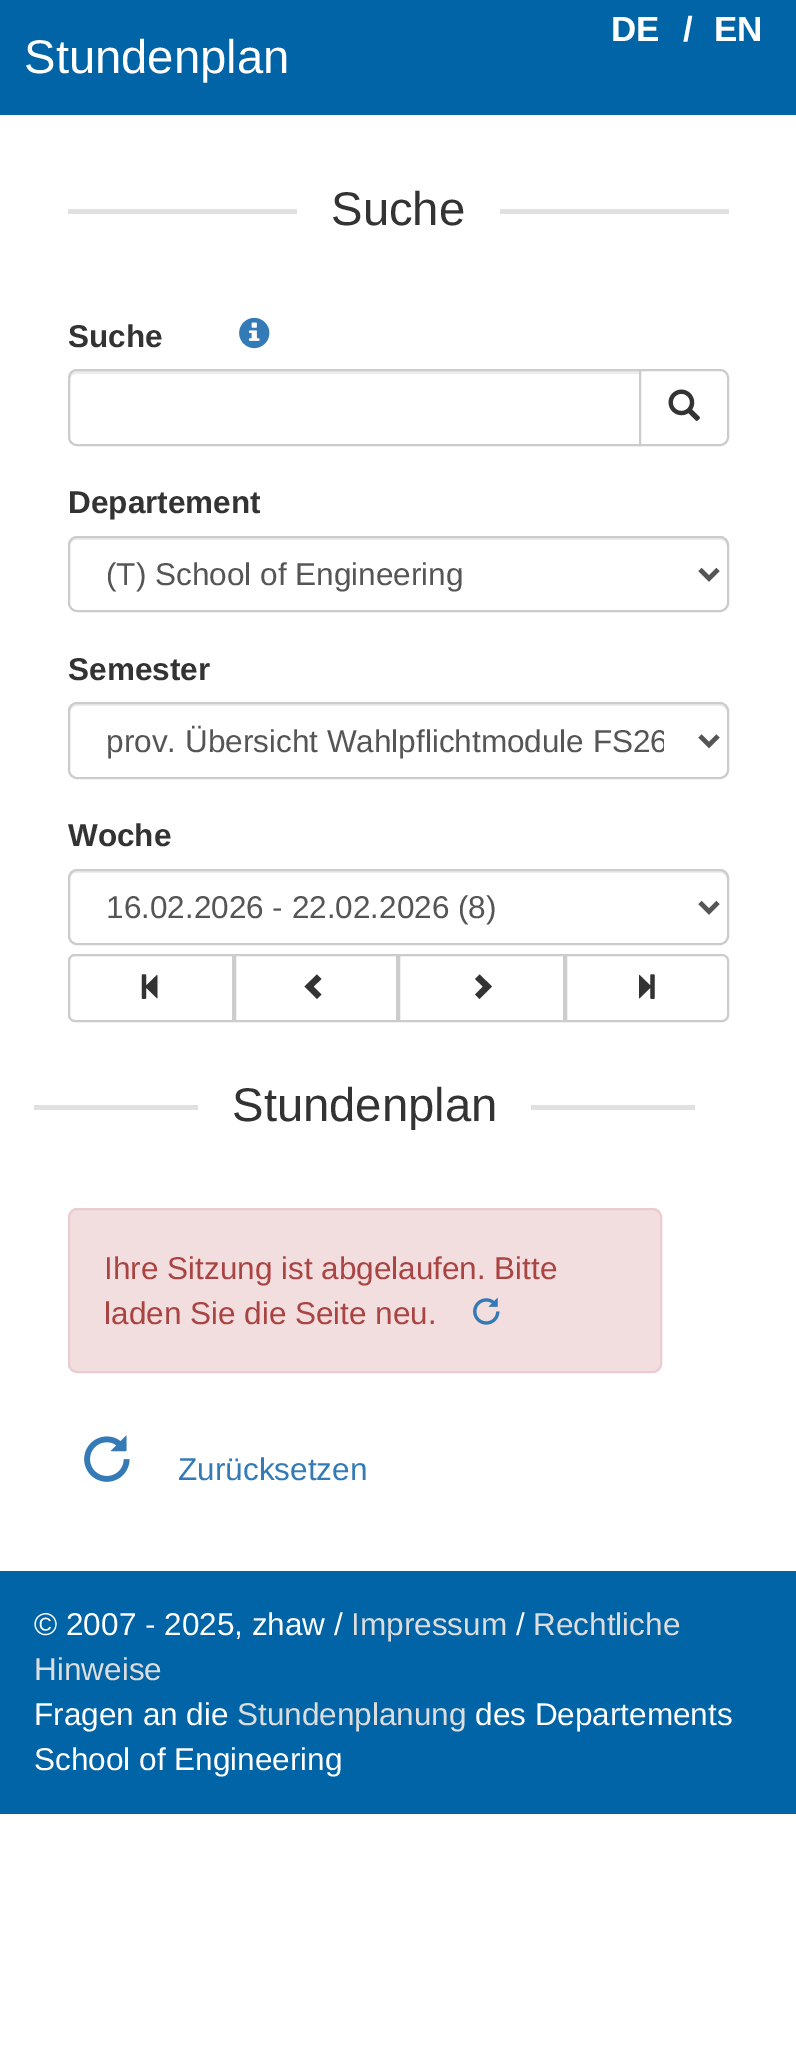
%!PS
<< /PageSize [796 2059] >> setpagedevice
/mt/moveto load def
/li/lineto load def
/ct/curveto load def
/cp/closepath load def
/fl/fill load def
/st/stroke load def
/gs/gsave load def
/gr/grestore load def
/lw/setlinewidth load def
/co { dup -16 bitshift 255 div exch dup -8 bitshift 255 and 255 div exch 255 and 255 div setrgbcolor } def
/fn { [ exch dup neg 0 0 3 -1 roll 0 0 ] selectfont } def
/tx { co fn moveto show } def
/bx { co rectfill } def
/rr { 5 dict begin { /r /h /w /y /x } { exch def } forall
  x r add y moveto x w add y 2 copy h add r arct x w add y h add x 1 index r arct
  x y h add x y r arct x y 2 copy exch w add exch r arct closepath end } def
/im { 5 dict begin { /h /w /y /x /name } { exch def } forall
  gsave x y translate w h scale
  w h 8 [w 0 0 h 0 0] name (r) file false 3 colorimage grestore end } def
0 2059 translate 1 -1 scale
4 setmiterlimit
0 0 796 2059 16#FFFFFF bx
0 0 796 115 16#0064A6 bx
68 209 229 5 16#E0E0E0 bx
500 209 229 5 16#E0E0E0 bx
(media/1.raw) 239 317 31 32 im
16#ECECEC co
76 374 mt 639 374 li 639 371 li 77 371 li 73 371 70 374 70 378 ct 70 380 li 70 377 73 374 76 374 ct cp fl
16#CCCCCC co
2 lw
77 370 mt 640 370 li 640 445 li 77 445 li 72.5 445 69 441.5 69 437 ct 69 378 li 69 373.5 72.5 370 77 370 ct cp st
16#FFFFFF co
640 370 mt 720 370 li 724.5 370 728 373.5 728 378 ct 728 437 li 728 441.5 724.5 445 720 445 ct 640 445 li cp gs fl gr
16#CCCCCC co
st
(media/2.raw) 668 389 32 32 im
16#ECECEC co
76 540 mt 720 540 li 724 540 727 543 727 547 ct 727 545 li 727 541 724 538 720 538 ct 77 538 li 73 538 70 541 70 545 ct 70 547 li 70 543 73 540 76 540 ct cp fl
16#CCCCCC co
69 537 659 74 8 rr st
16#555555 co
4.5 lw
700 569.5 mt 709 578.5 li 718 569.5 li st
16#ECECEC co
76 706 mt 720 706 li 724 706 727 710 727 713 ct 727 711 li 727 707 724 704 720 704 ct 77 704 li 73 704 70 707 70 711 ct 70 713 li 70 710 73 706 76 706 ct cp fl
16#CCCCCC co
2 lw
69 703 659 75 8 rr st
16#555555 co
4.5 lw
700 736 mt 709 745 li 718 736 li st
16#ECECEC co
76 873 mt 720 873 li 724 873 727 876 727 880 ct 727 878 li 727 874 724 871 720 871 ct 77 871 li 73 871 70 874 70 878 ct 70 880 li 70 876 73 873 76 873 ct cp fl
16#CCCCCC co
2 lw
69 870 659 74 8 rr st
16#555555 co
4.5 lw
700 902.5 mt 709 911.5 li 718 902.5 li st
16#CCCCCC co
2 lw
75 955 mt 233 955 li 233 1021 li 75 1021 li 71.5 1021 69 1018.5 69 1015 ct 69 961 li 69 957.5 71.5 955 75 955 ct cp st
(media/3.raw) 141 974 17 25 im
235 955 162 66 rectstroke
16#333333 co
321.5 979 mt 313.5 986.5 li 321.5 994.5 li 317 999 li 304.5 986.5 li 317 974.5 li cp fl
16#CCCCCC co
399 955 165 66 rectstroke
16#333333 co
492 986.5 mt 479.5 999 li 475 994.5 li 483 986.5 li 475 979 li 479.5 974.5 li cp fl
16#CCCCCC co
566 955 mt 722 955 li 725.5 955 728 957.5 728 961 ct 728 1015 li 728 1018.5 725.5 1021 722 1021 ct 566 1021 li cp st
(media/4.raw) 639 974 16 25 im
34 1105 164 5 16#E0E0E0 bx
531 1105 164 5 16#E0E0E0 bx
16#F2DEDE co
69 1209 592 163 8 rr gs fl gr
16#EBCCD1 co
st
(media/5.raw) 473 1297 27 28 im
(media/6.raw) 84 1435 46 47 im
0 1571 796 243 16#0064A6 bx
(DE) 611 41 /LiberationSans-Bold 35 16#FFFFFF tx
(/) 683 41 /LiberationSans-Bold 35 16#FFFFFF tx
(EN) 714 41 /LiberationSans-Bold 35 16#FFFFFF tx
(Stundenplan) 24 73 /LiberationSans-Regular 47.25 16#FFFFFF tx
(Suche) 331 225 /LiberationSans-Regular 47.25 16#333333 tx
(Suche) 68 347 /LiberationSans-Bold 31.5 16#333333 tx
(Departement) 68 513 /LiberationSans-Bold 31.5 16#333333 tx
(\(T\) School of Engineering) 106 585 /LiberationSans-Regular 31.5 16#555555 tx
(Semester) 68 680 /LiberationSans-Bold 31.5 16#333333 tx
gs
106 720 558 41 rectclip
(prov. Übersicht Wahlpflichtmodule FS26) 106 752 /LiberationSans-Regular 31.5 16#555555 tx
gr
(Woche) 68 846 /LiberationSans-Bold 31.5 16#333333 tx
(16.02.2026 - 22.02.2026 \(8\)) 106 918 /LiberationSans-Regular 31.5 16#555555 tx
gs
34 1078 661 52 rectclip
(Stundenplan) 232 1121 /LiberationSans-Regular 47.25 16#333333 tx
gr
(Ihre Sitzung ist abgelaufen. Bitte) 104 1279 /LiberationSans-Regular 31.5 16#A94442 tx
(laden Sie die Seite neu.) 104 1324 /LiberationSans-Regular 31.5 16#A94442 tx
(Zurücksetzen) 178 1480 /LiberationSans-Regular 31.5 16#337AB7 tx
(© 2007 - 2025, zhaw /) 34 1635 /LiberationSans-Regular 31.5 16#FFFFFF tx
(Impressum) 351 1635 /LiberationSans-Regular 31.5 16#DDDDDD tx
(/) 516 1635 /LiberationSans-Regular 31.5 16#FFFFFF tx
(Rechtliche) 533 1635 /LiberationSans-Regular 31.5 16#DDDDDD tx
(Hinweise) 34 1680 /LiberationSans-Regular 31.5 16#DDDDDD tx
(Fragen an die) 34 1725 /LiberationSans-Regular 31.5 16#FFFFFF tx
(Stundenplanung) 237 1725 /LiberationSans-Regular 31.5 16#DDDDDD tx
(des Departements) 475 1725 /LiberationSans-Regular 31.5 16#FFFFFF tx
(School of Engineering) 34 1770 /LiberationSans-Regular 31.5 16#FFFFFF tx
showpage
